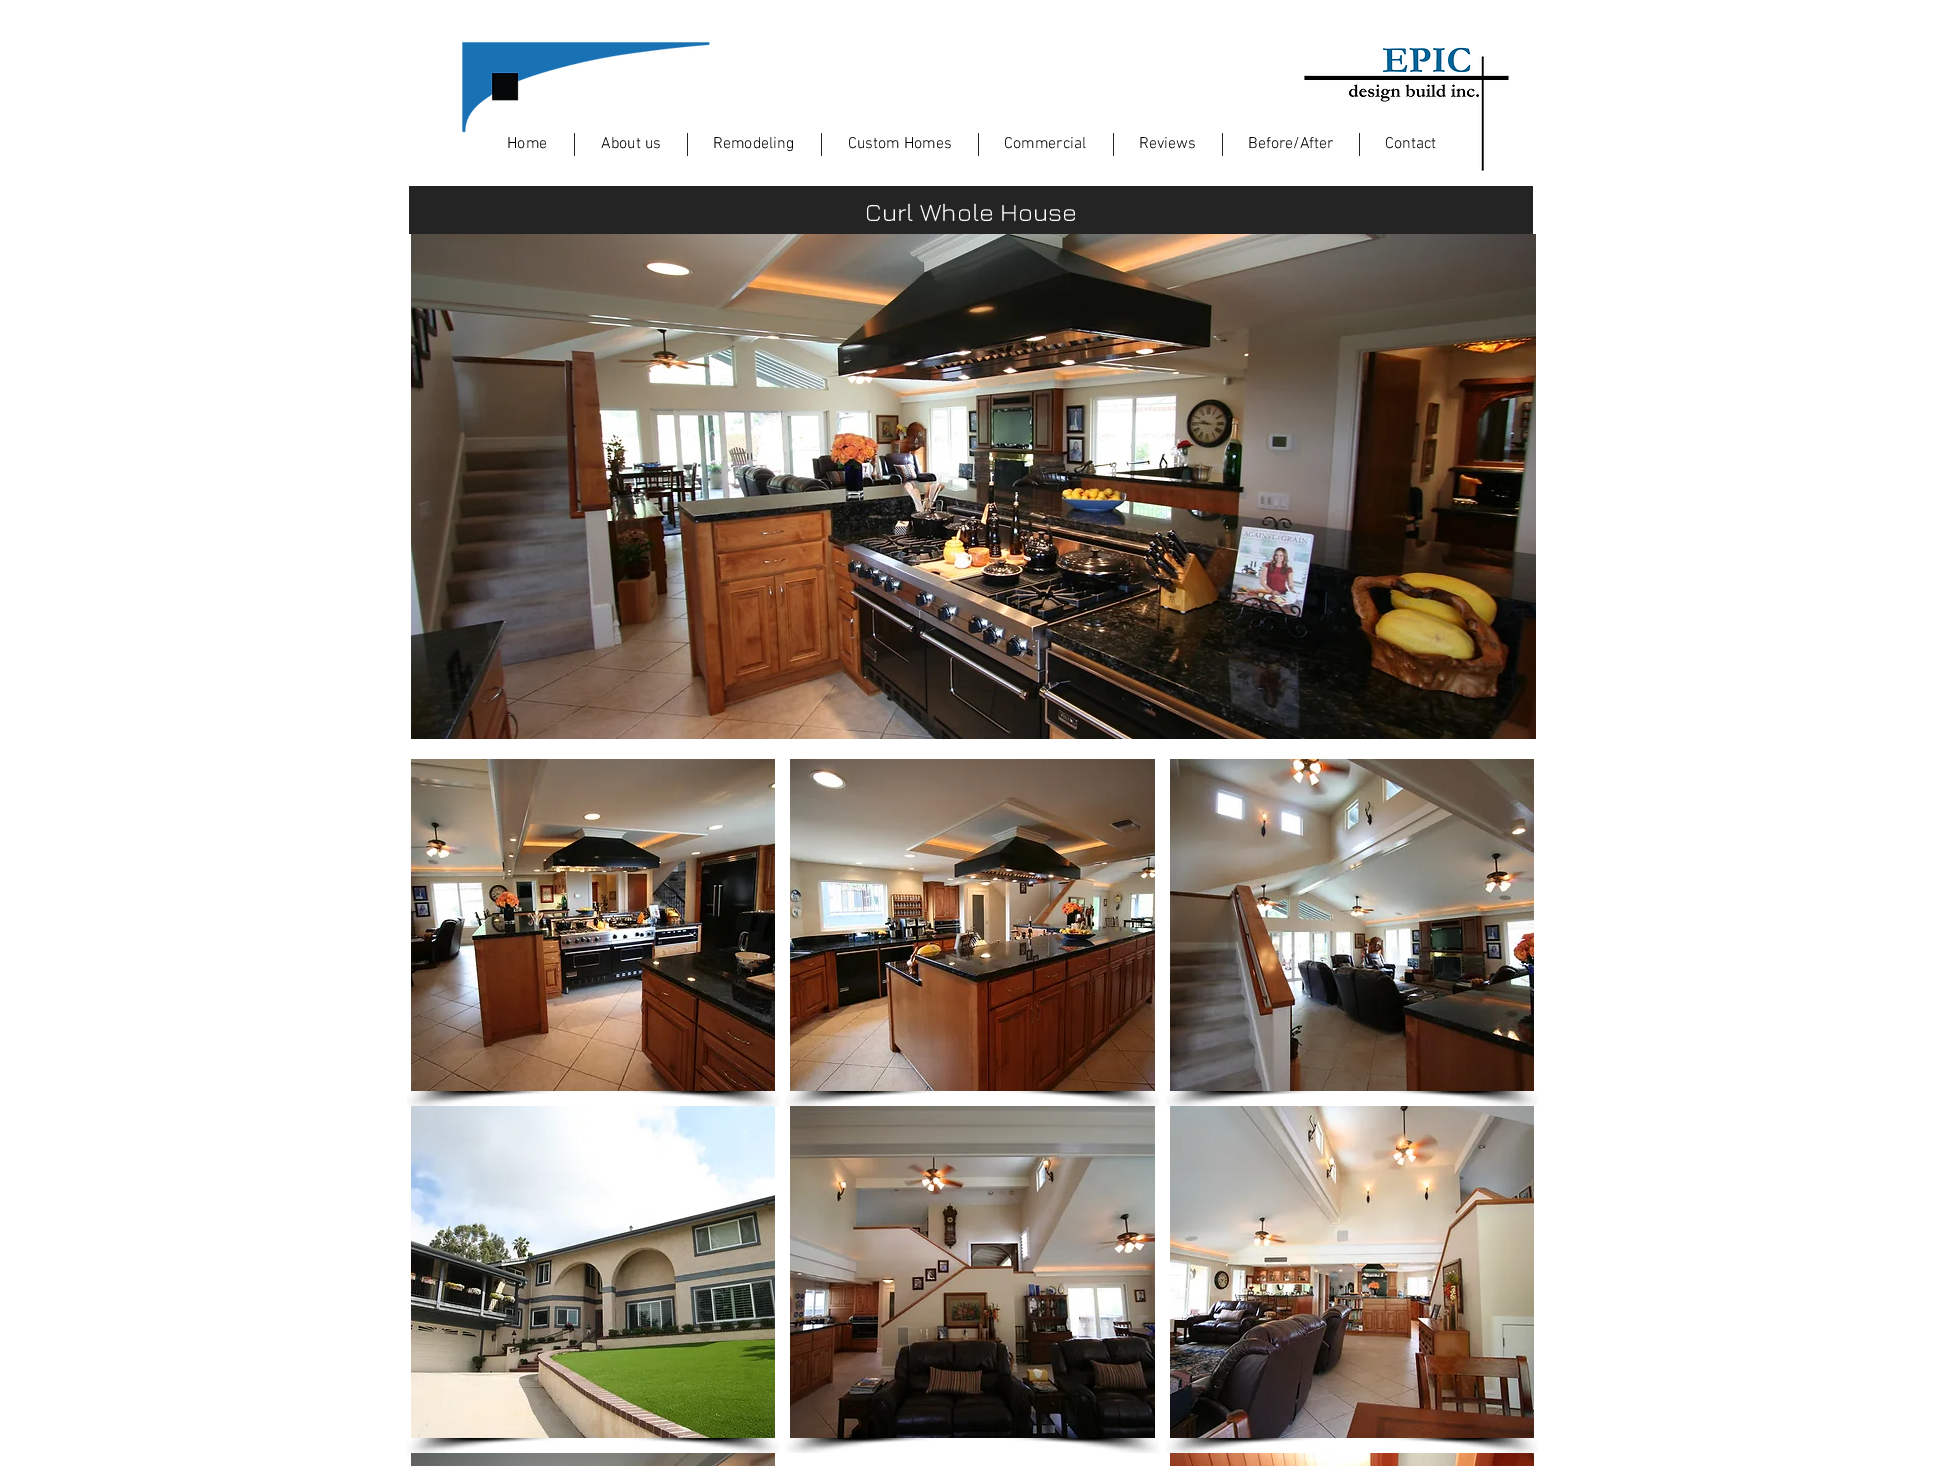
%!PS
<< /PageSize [1943 1466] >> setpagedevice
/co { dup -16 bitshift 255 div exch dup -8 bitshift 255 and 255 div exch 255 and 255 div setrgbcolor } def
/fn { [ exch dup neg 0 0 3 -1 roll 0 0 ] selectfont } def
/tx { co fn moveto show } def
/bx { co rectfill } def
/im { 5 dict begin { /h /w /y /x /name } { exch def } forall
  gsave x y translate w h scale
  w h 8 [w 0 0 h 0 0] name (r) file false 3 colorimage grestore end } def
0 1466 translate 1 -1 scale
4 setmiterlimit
0 0 1943 1466 16#FFFFFF bx
(media/1.raw) 462 41 248 92 im
(media/2.raw) 1304 47 205 124 im
574 133 1 23 16#242424 bx
687 133 1 23 16#242424 bx
821 133 1 23 16#242424 bx
978 133 1 23 16#242424 bx
1113 133 1 23 16#242424 bx
1222 133 1 23 16#242424 bx
1359 133 1 23 16#242424 bx
409 186 1124 48 16#242424 bx
(media/3.raw) 411 234 1125 505 im
(media/4.raw) 411 759 364 332 im
(media/5.raw) 407 1091 154 15 im
(media/6.raw) 625 1091 154 15 im
(media/7.raw) 790 759 365 332 im
(media/5.raw) 786 1091 154 15 im
(media/6.raw) 1005 1091 154 15 im
(media/8.raw) 1170 759 364 332 im
(media/5.raw) 1166 1091 154 15 im
(media/6.raw) 1384 1091 154 15 im
(media/9.raw) 411 1106 364 332 im
(media/5.raw) 407 1438 154 15 im
(media/6.raw) 625 1438 154 15 im
(media/10.raw) 790 1106 365 332 im
(media/5.raw) 786 1438 154 15 im
(media/6.raw) 1005 1438 154 15 im
(media/11.raw) 1170 1106 364 332 im
(media/5.raw) 1166 1438 154 15 im
(media/6.raw) 1384 1438 154 15 im
(media/12.raw) 411 1453 364 13 im
(media/13.raw) 1170 1453 364 13 im
(Home) 507 148 /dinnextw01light-Light 16 16#000000 tx
(About us) 601 148 /dinnextw01light-Light 16 16#000000 tx
(Remodeling) 713 148 /dinnextw01light-Light 16 16#000000 tx
(Custom Homes) 848 148 /dinnextw01light-Light 16 16#000000 tx
(Commercial) 1004 148 /dinnextw01light-Light 16 16#000000 tx
(Reviews) 1139 148 /dinnextw01light-Light 16 16#000000 tx
(Before/After) 1248 148 /dinnextw01light-Light 16 16#000000 tx
(Contact) 1385 148 /dinnextw01light-Light 16 16#000000 tx
(Curl Whole House) 865 221 /Jura-Regular 25 16#FFFFFF tx
showpage
